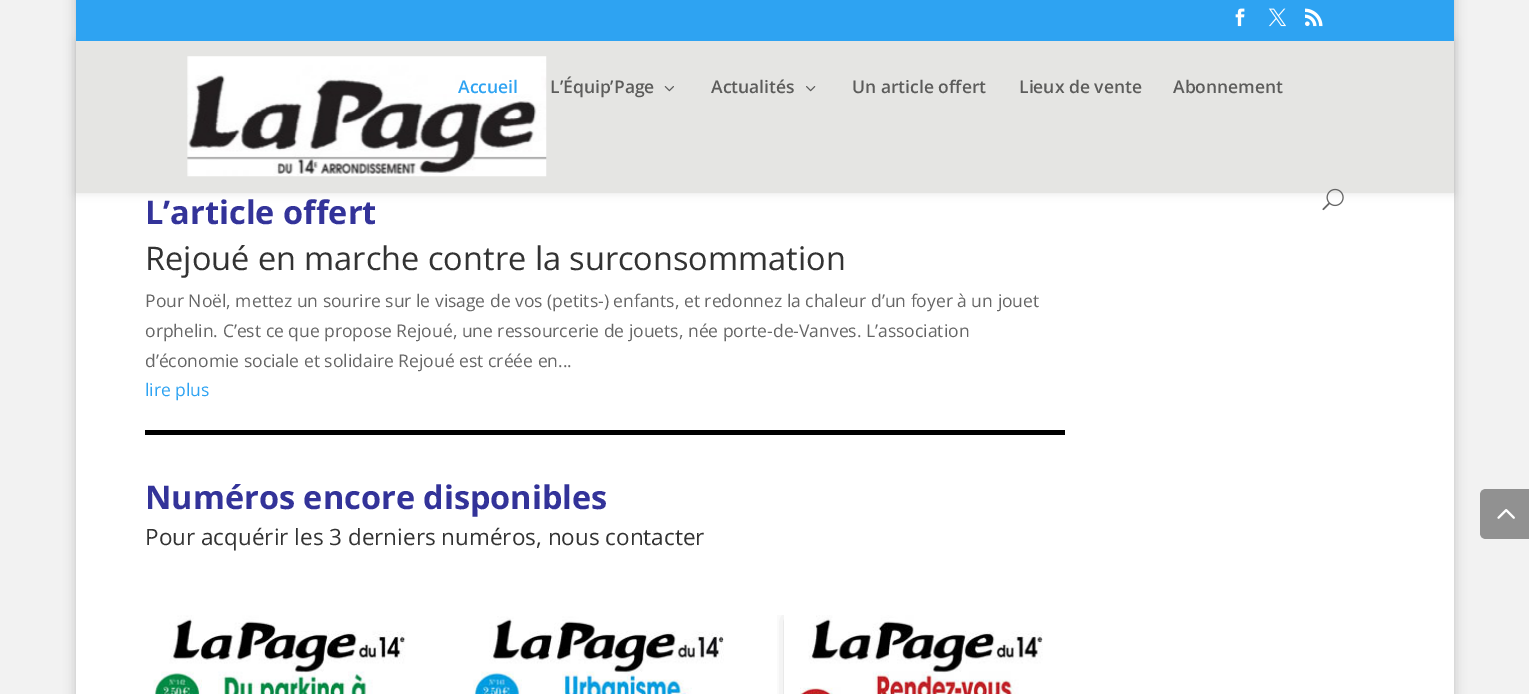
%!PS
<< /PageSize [1529 694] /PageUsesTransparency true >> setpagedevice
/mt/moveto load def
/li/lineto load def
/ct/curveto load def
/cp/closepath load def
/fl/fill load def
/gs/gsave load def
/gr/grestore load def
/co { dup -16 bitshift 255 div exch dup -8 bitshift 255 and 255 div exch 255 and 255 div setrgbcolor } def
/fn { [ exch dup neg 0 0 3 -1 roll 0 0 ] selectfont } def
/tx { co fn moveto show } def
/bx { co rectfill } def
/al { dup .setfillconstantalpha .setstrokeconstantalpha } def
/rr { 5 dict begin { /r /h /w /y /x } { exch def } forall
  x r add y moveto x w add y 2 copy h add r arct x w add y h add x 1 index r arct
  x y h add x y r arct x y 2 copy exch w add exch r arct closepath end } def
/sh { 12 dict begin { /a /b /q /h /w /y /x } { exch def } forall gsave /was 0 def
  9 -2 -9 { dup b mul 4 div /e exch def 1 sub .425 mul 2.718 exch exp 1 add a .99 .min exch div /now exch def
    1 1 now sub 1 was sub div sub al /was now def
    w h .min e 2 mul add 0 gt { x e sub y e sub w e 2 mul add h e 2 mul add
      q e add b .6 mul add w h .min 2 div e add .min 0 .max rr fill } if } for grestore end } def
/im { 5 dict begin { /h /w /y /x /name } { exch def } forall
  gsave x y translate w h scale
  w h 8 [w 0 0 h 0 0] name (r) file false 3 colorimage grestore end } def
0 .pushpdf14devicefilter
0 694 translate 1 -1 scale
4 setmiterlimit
0 0 1529 694 16#F2F2F2 bx
16#000000 co
76 -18 1378 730 0 6 .2 sh
76 193 1378 501 16#FFFFFF bx
16#000000 co
76 41 1378 152 0 4.5 .1 sh
76 0 1378 41 16#2EA3F2 bx
(media/1.raw) 1235 8 10 19 im
(media/2.raw) 1268 8 18 19 im
(media/3.raw) 1305 8 18 19 im
76 41 1378 152 16#E5E5E3 bx
(media/4.raw) 187 56 360 121 im
(media/5.raw) 664 86 10 6 im
(media/6.raw) 806 86 10 6 im
(media/7.raw) 1322 188 22 23 im
145 430 920 5 16#000000 bx
(media/8.raw) 153 615 253 79 im
(media/9.raw) 473 616 251 78 im
gs
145 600 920 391 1 rr clip newpath
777 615 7 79 rectclip
789 619 281 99 0 8 .3 sh
gr
(media/10.raw) 800 615 243 79 im
16#919191 co
1486 489 mt 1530 489 li 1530 539 li 1486 539 li 1482.5 539 1480 536.5 1480 533 ct 1480 495 li 1480 491.5 1482.5 489 1486 489 ct cp fl
(media/11.raw) 1497 509 18 10 im
(Accueil) 458 93 /OpenSans-SemiBold 17.5 16#2EA3F2 tx
(L’Équip’Page) 550 93 /OpenSans-SemiBold 17.5 16#5C5C5B tx
(Actualités) 711 93 /OpenSans-SemiBold 17.5 16#5C5C5B tx
(Un article offert) 852 93 /OpenSans-SemiBold 17.5 16#5C5C5B tx
(Lieux de vente) 1019 93 /OpenSans-SemiBold 17.5 16#5C5C5B tx
(Abonnement) 1173 93 /OpenSans-SemiBold 17.5 16#5C5C5B tx
(L’article offert) 145 224 /OpenSans-Bold 32.5 16#333399 tx
(Rejoué en marche contre la surconsommation) 145 270 /OpenSans-Regular 32.5 16#333333 tx
(Pour Noël, mettez un sourire sur le visage de vos \(petits-\) enfants, et redonnez la chaleur d’un foyer à un jouet) 145 307 /OpenSans-Regular 17.5 16#666666 tx
(orphelin. C’est ce que propose Rejoué, une ressourcerie de jouets, née porte-de-Vanves. L’association) 145 337 /OpenSans-Regular 17.5 16#666666 tx
(d’économie sociale et solidaire Rejoué est créée en...) 145 367 /OpenSans-Regular 17.5 16#666666 tx
(lire plus) 145 396 /OpenSans-Regular 17.5 16#2EA3F2 tx
(Numéros encore disponibles) 145 509 /OpenSans-Bold 32.5 16#333399 tx
(Pour acquérir les 3 derniers numéros, nous contacter) 145 545 /OpenSans-Regular 22.5 16#333333 tx
.poppdf14devicefilter showpage
